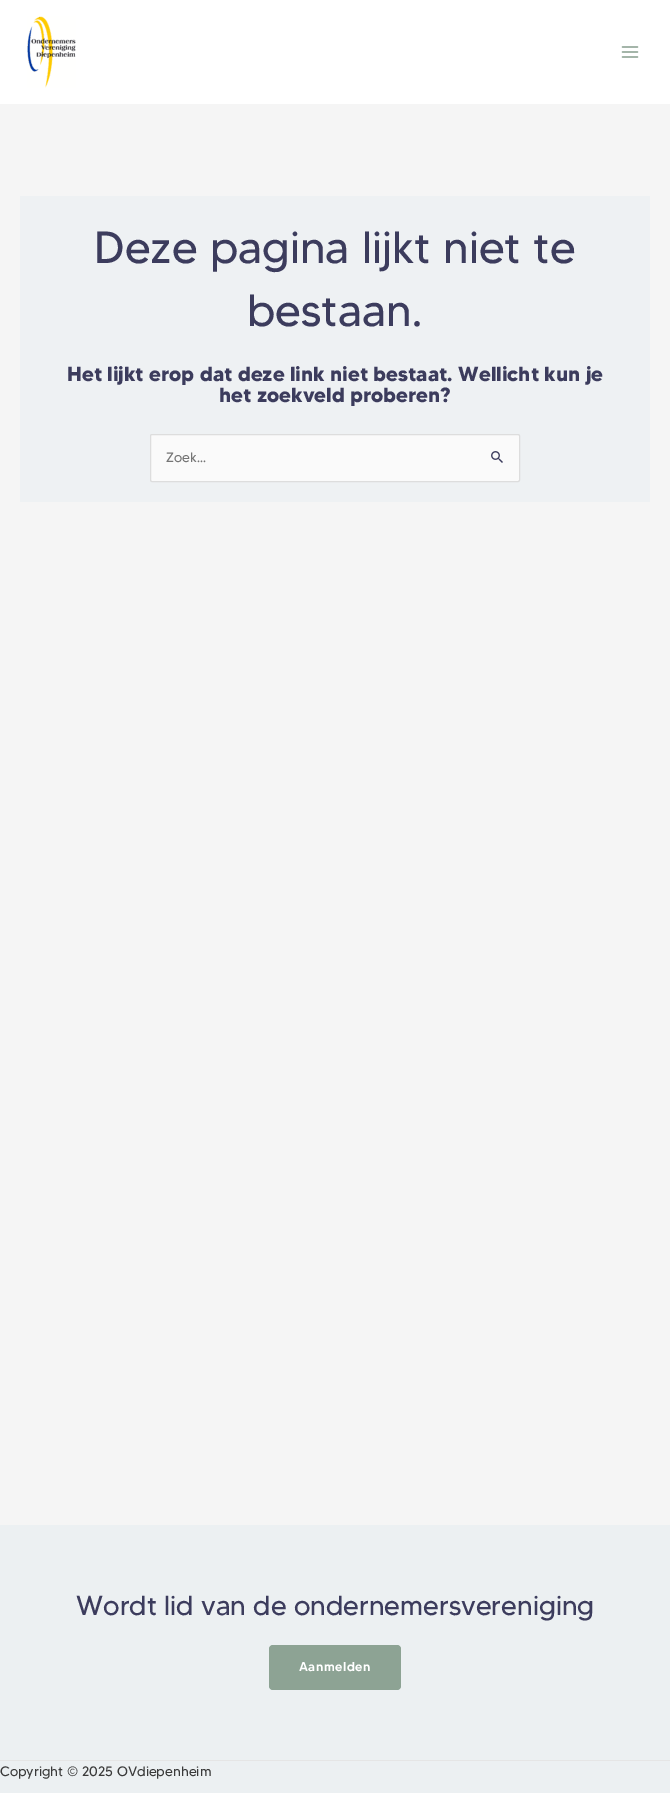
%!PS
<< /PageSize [670 1793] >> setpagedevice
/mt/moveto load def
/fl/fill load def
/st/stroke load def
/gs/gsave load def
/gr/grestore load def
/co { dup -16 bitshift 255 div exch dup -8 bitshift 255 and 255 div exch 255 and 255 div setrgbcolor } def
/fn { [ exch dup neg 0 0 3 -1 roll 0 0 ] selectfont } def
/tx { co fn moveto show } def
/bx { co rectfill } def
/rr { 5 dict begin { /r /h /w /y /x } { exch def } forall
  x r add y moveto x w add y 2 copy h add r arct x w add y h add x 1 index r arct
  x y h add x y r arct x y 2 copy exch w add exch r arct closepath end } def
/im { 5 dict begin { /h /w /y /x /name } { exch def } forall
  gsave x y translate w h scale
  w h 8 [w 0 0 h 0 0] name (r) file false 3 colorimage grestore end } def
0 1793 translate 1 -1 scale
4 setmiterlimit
0 0 670 1793 16#F5F5F5 bx
0 0 670 104 16#FFFFFF bx
(media/1.raw) 27 16 49 72 im
(media/2.raw) 621 46 18 12 im
20 196 630 306 16#EEF1F3 bx
16#FAFAFA co
150.5 434.5 369 47 1.5 rr gs fl gr
16#DDDDDD co
st
(media/3.raw) 491 451 12 12 im
0 1525 670 235 16#ECF0F2 bx
16#8DA394 co
269 1645 132 45 4 rr fl
0 1761 670 32 16#ECF0F2 bx
0 1760 670 1 16#E5E5E5 bx
(Deze pagina lijkt niet te) 94 263 /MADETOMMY-Regular 45 16#3C3C5D tx
(bestaan.) 247 326 /MADETOMMY-Regular 45 16#3C3C5D tx
(Het lijkt erop dat deze link niet bestaat. Wellicht kun je) 67 381 /MADETOMMY-Bold 20.5 16#3C3C5D tx
(het zoekveld proberen?) 219 402 /MADETOMMY-Bold 20.5 16#3C3C5D tx
(Zoek...) 166 462 /MADETOMMY-Regular 13.7 16#757575 tx
(Wordt lid van de ondernemersvereniging) 76 1615 /MADETOMMY-Regular 27.4 16#3C3C5D tx
/MADETOMMY-Medium 12.75 fn
16#FFFFFF co
299 1671 mt .5 0 (Aanmelden) ashow
(Copyright © 2025 OVdiepenheim) 0 1776 /MADETOMMY-Regular 13.7 16#3A3A3A tx
showpage
